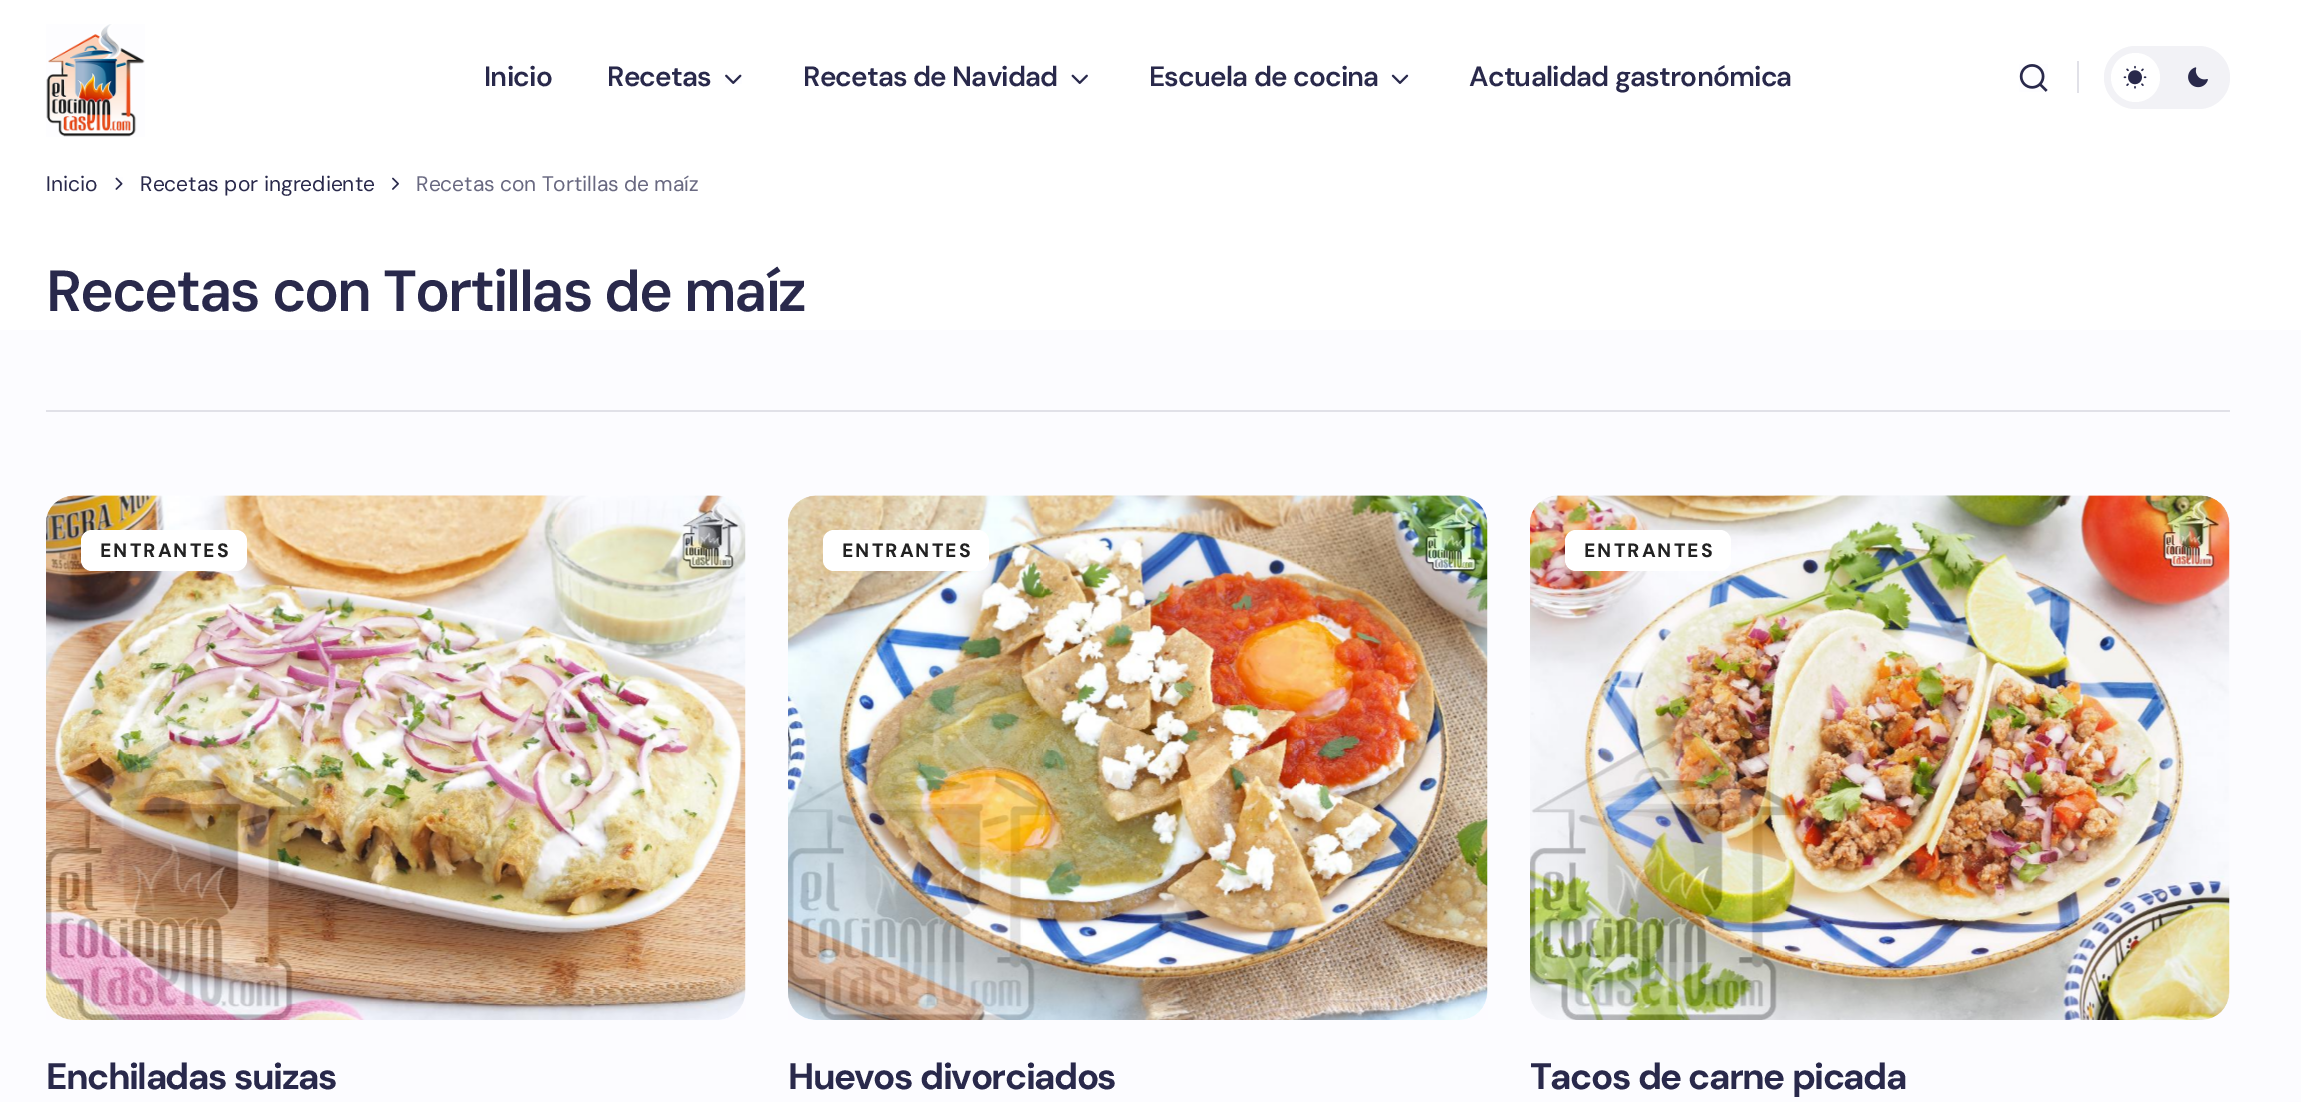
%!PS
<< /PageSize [2301 1102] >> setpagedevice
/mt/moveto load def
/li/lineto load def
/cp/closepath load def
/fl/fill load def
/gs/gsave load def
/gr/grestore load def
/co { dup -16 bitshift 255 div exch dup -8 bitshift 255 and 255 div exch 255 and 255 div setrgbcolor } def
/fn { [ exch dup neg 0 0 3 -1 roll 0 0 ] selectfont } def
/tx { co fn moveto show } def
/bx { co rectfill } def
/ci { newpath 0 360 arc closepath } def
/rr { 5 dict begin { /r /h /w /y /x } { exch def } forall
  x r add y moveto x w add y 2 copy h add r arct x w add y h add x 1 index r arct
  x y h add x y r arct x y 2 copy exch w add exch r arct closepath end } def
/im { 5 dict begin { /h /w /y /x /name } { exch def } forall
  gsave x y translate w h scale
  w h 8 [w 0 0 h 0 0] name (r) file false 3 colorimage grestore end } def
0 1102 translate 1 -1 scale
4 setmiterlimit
0 0 2301 1102 16#FFFFFF bx
gs 0 330 mt 2301 330 li 2301 1102 li 0 1102 li cp clip newpath
<< /ShadingType 2 /ColorSpace /DeviceRGB /Coords [1137 0 1138 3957] /Extend [true true] /Function << /FunctionType 2 /Domain [0 1] /C0 [.992 .992 1] /C1 [.973 .969 1] /N 1 >> >> shfill gr
(media/1.raw) 46 24 99 113 im
(media/2.raw) 725 74 17 10 im
(media/3.raw) 1071 74 17 10 im
(media/4.raw) 1391 74 18 10 im
(media/5.raw) 2019 64 29 28 im
2077 61 2 32 16#E1E1E8 bx
16#F2F2F6 co
2104 46 126 63 31.5 rr fl
16#FFFFFF co
2135.5 77.5 24.5 ci fl
(media/6.raw) 2123 65 24 24 im
(media/7.raw) 2188 67 20 21 im
(media/8.raw) 115 177 8 13 im
(media/9.raw) 392 177 7 13 im
46 410 2184 2 16#E1E1E8 bx
(media/10.raw) 46 495 700 525 im
16#FFFFFF co
81 530 166 41 11 rr fl
(media/11.raw) 788 495 700 525 im
823 530 166 41 11 rr fl
(media/12.raw) 1530 495 700 525 im
1565 530 166 41 11 rr fl
/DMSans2-SemiBold 28 fn
16#29294B co
484 86 mt -.8 0 (Inicio) ashow
607 86 mt -.8 0 (Recetas) ashow
803 86 mt -.8 0 (Recetas de Navidad) ashow
1149 86 mt -.8 0 (Escuela de cocina) ashow
1469 86 mt -.8 0 (Actualidad gastronómica) ashow
(Inicio) 46 191 /DMSans-Regular 21 16#29294B tx
(Recetas por ingrediente) 140 191 /DMSans-Regular 21 16#29294B tx
16#696981 co
416 191 mt -.5 0 32 (Recetas con Tortillas de maíz) widthshow
/DMSans-SemiBold 57.75 fn
16#29294B co
46 311 mt 1 0 32 -2.3 0 (Recetas con Tortillas de maíz) awidthshow
/DMSans-ExtraBold 19.25 fn
16#222222 co
100 557 mt 2 0 (ENTRANTES) ashow
/DMSans-Bold 36.75 fn
16#29294B co
46 1089 mt 1 0 32 -1.5 0 (Enchiladas suizas) awidthshow
/DMSans-ExtraBold 19.25 fn
16#222222 co
842 557 mt 2 0 (ENTRANTES) ashow
/DMSans-Bold 36.75 fn
16#29294B co
788 1089 mt 1 0 32 -1.5 0 (Huevos divorciados) awidthshow
/DMSans-ExtraBold 19.25 fn
16#222222 co
1584 557 mt 2 0 (ENTRANTES) ashow
/DMSans-Bold 36.75 fn
16#29294B co
1530 1089 mt .5 0 32 -1.5 0 (Tacos de carne picada) awidthshow
showpage
